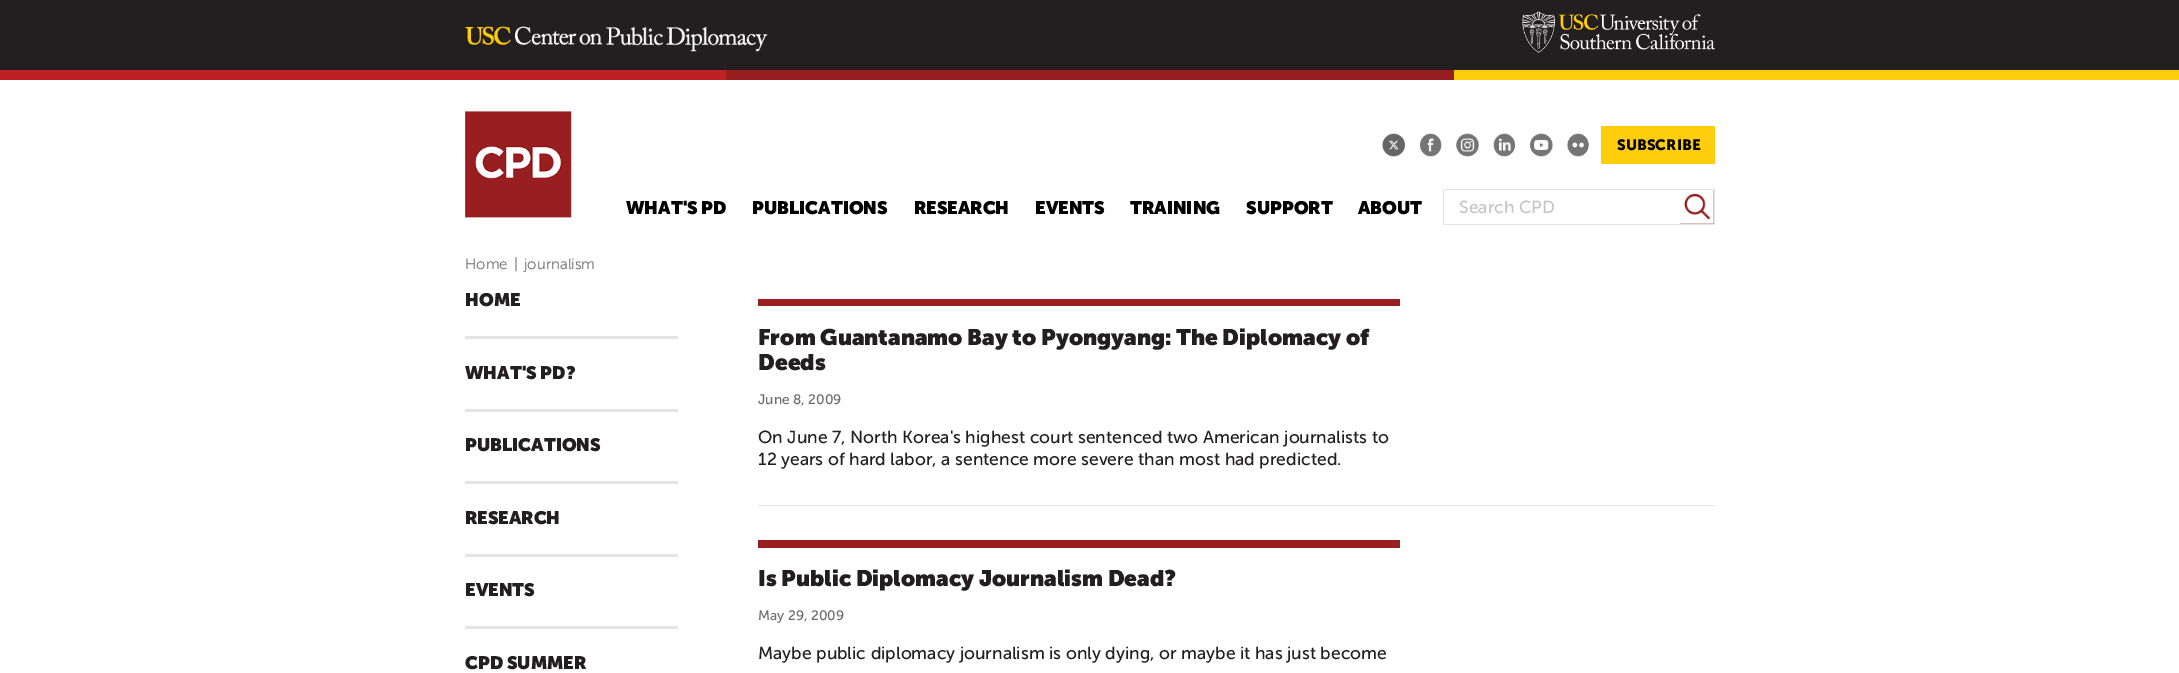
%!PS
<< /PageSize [2179 673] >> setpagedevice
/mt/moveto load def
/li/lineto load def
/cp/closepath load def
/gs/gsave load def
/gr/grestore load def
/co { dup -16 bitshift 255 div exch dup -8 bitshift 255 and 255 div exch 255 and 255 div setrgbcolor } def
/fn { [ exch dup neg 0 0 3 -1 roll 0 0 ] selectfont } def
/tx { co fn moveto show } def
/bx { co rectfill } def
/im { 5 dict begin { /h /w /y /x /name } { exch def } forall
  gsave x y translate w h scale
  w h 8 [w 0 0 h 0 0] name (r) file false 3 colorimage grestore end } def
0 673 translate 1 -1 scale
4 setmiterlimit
0 0 2179 673 16#FFFFFF bx
0 0 2179 70 16#231F20 bx
(media/1.raw) 465 26 303 26 im
(media/2.raw) 1522 11 193 42 im
0 70 726 10 16#BE2026 bx
726 70 728 10 16#991E20 bx
1454 70 725 10 16#FECD0B bx
(media/3.raw) 465 111 107 107 im
(media/4.raw) 1382 133 23 24 im
(media/5.raw) 1420 133 22 24 im
(media/6.raw) 1456 133 23 24 im
(media/7.raw) 1493 133 22 24 im
(media/8.raw) 1530 133 23 24 im
(media/9.raw) 1567 133 22 24 im
1601 126 114 38 16#FECD0B bx
1443 189 272 1 16#E4E4E4 bx
1443 224 237 1 16#E4E4E4 bx
1443 189 1 36 16#E4E4E4 bx
gs 1680 190 mt 1714 190 li 1714 224 li 1680 224 li cp clip newpath
<< /ShadingType 2 /ColorSpace /DeviceRGB /Coords [1697 190 1697 224] /Extend [true true] /Function << /FunctionType 2 /Domain [0 1] /C0 [.6 0 0] /C1 [.459 0 0] /N 1 >> >> shfill gr
1714 189 1 36 16#E4E4E4 bx
1680 224 35 1 16#E4E4E4 bx
(media/10.raw) 1680 190 34 34 im
465 336 213 3 16#E4E4E4 bx
465 409 213 3 16#E4E4E4 bx
465 481 213 3 16#E4E4E4 bx
465 554 213 3 16#E4E4E4 bx
465 626 213 3 16#E4E4E4 bx
758 505 957 1 16#E4E6E6 bx
758 299 642 7 16#991E20 bx
758 540 642 8 16#991E20 bx
(SUBSCRIBE) 1617 150 /MuseoSans-Bold 15 16#000000 tx
(WHAT'S PD) 626 214 /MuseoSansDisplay-Black 18 16#000000 tx
(PUBLICATIONS) 752 214 /MuseoSansDisplay-Black 18 16#000000 tx
(RESEARCH) 914 214 /MuseoSansDisplay-Black 18 16#000000 tx
(EVENTS) 1035 214 /MuseoSansDisplay-Black 18 16#000000 tx
(TRAINING) 1130 214 /MuseoSansDisplay-Black 18 16#000000 tx
(SUPPORT) 1246 214 /MuseoSansDisplay-Black 18 16#000000 tx
(ABOUT) 1358 214 /MuseoSansDisplay-Black 18 16#000000 tx
(Search CPD) 1459 213 /MuseoSans-Regular 17.5 16#C6C5C5 tx
(Home) 465 269 /MuseoSans-Light 15 16#6D6D6D tx
(|) 514 269 /MuseoSans-Light 15 16#6D6D6D tx
(journalism) 524 269 /MuseoSans-Light 15 16#6D6D6D tx
(HOME) 465 306 /MuseoSansDisplay-Black 18 16#231F20 tx
(WHAT'S PD?) 465 379 /MuseoSansDisplay-Black 18 16#231F20 tx
(PUBLICATIONS) 465 451 /MuseoSansDisplay-Black 18 16#231F20 tx
(RESEARCH) 465 524 /MuseoSansDisplay-Black 18 16#231F20 tx
(EVENTS) 465 596 /MuseoSansDisplay-Black 18 16#231F20 tx
(CPD SUMMER) 465 669 /MuseoSansDisplay-Black 18 16#231F20 tx
(From Guantanamo Bay to Pyongyang: The Diplomacy of) 758 345 /MuseoSansDisplay-Black 22.5 16#231F20 tx
(Deeds) 758 370 /MuseoSansDisplay-Black 22.5 16#231F20 tx
(June 8, 2009) 758 404 /MuseoSans-Regular 13.75 16#6D6D6D tx
(On June 7, North Korea's highest court sentenced two American journalists to) 758 443 /MuseoSans-Regular 17.5 16#231F20 tx
(12 years of hard labor, a sentence more severe than most had predicted.) 758 465 /MuseoSans-Regular 17.5 16#231F20 tx
(Is Public Diplomacy Journalism Dead?) 758 586 /MuseoSansDisplay-Black 22.5 16#231F20 tx
(May 29, 2009) 758 620 /MuseoSans-Regular 13.75 16#6D6D6D tx
(Maybe public diplomacy journalism is only dying, or maybe it has just become) 758 659 /MuseoSans-Regular 17.5 16#231F20 tx
showpage
